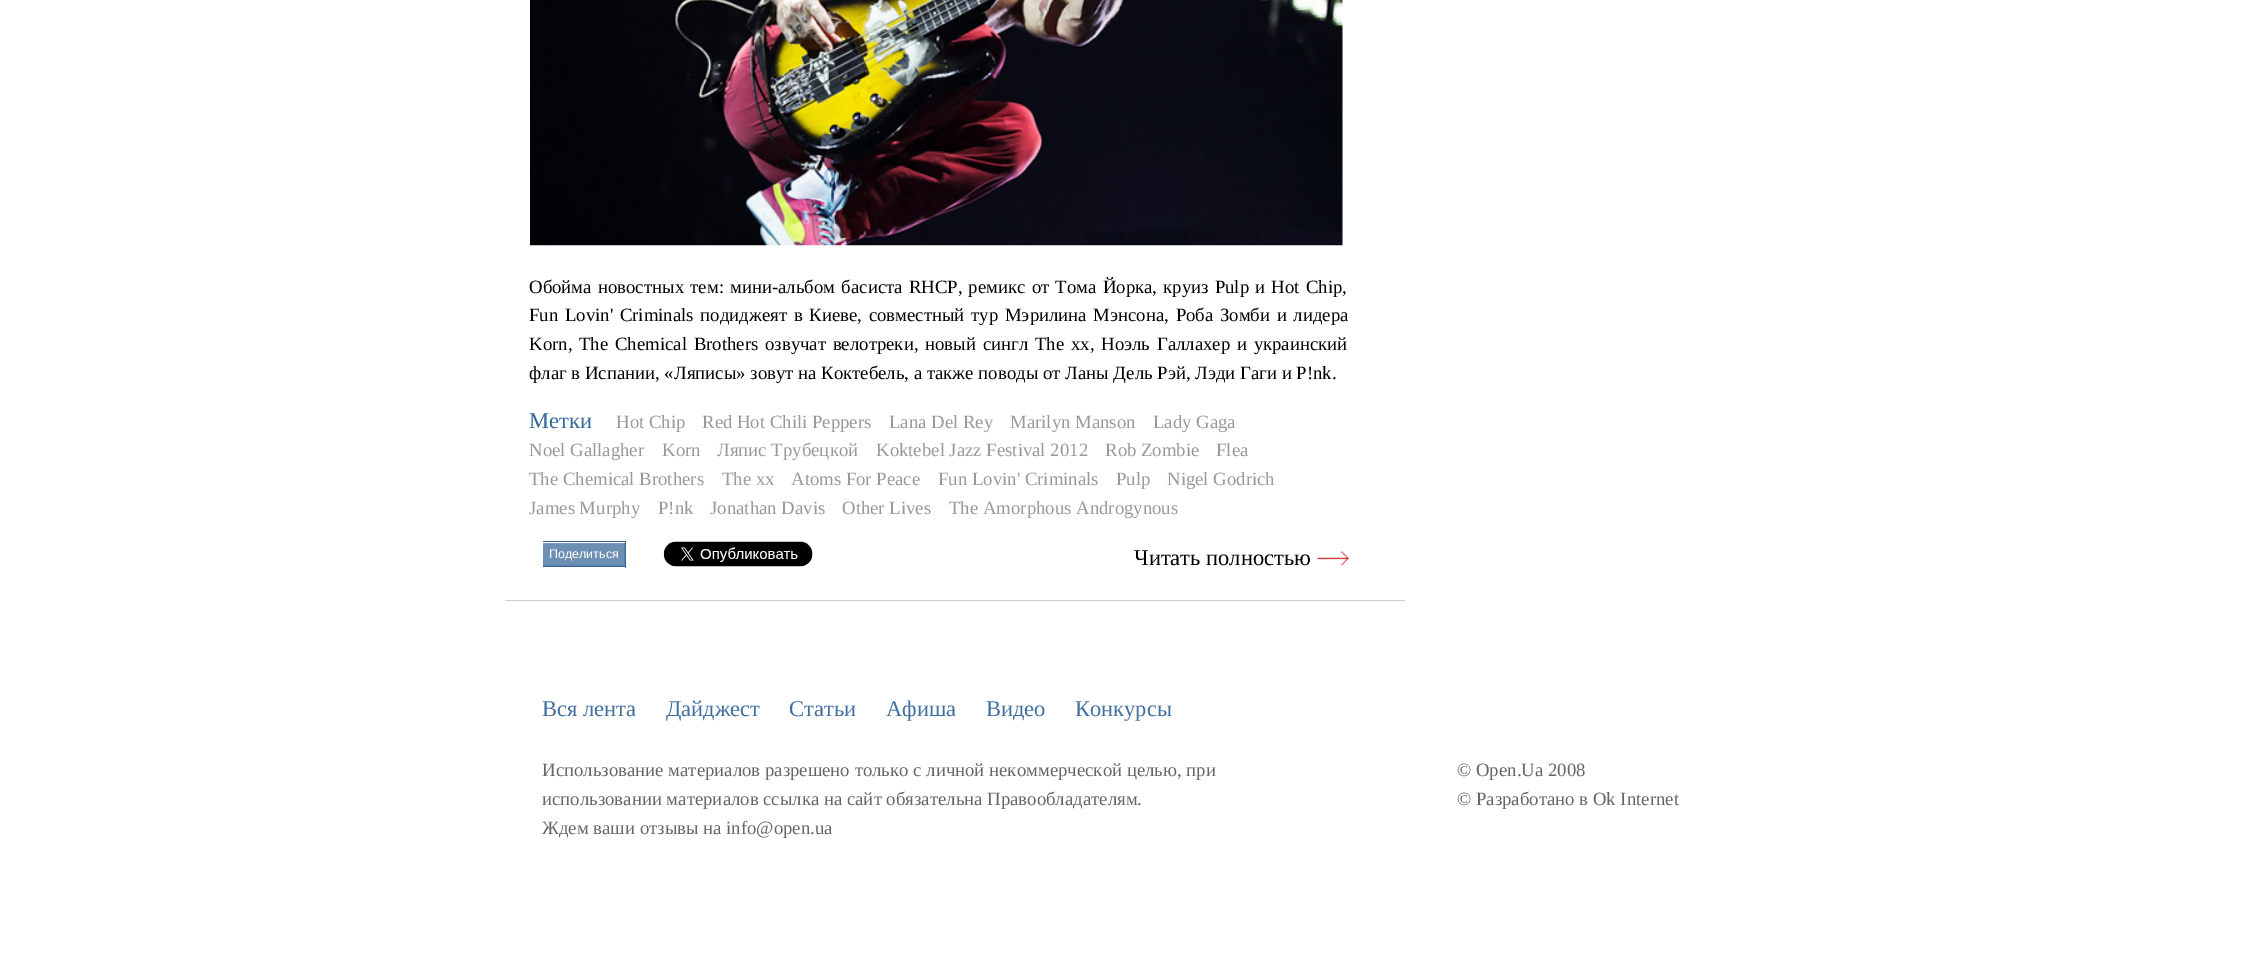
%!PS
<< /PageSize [2254 980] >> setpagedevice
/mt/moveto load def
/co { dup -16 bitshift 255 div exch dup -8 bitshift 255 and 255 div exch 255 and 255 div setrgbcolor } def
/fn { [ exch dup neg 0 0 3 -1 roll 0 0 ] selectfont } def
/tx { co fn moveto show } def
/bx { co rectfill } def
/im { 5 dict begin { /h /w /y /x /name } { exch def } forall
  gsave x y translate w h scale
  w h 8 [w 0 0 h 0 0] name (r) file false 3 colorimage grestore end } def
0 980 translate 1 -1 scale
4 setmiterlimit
0 0 2254 980 16#FFFFFF bx
505 600 900 1 16#CCCCCC bx
(media/1.raw) 530 0 813 246 im
543 541 83 1 16#3B6798 bx
625 541 1 27 16#3B6798 bx
543 566 83 1 16#3B6798 bx
543 544 81 21 16#6D8FB3 bx
543 543 82 1 16#7E9CBC bx
624 543 1 23 16#5C82AB bx
543 565 82 1 16#5C82AB bx
(media/2.raw) 663 541 150 26 im
(media/3.raw) 1317 551 32 15 im
/LiberationSerif-Regular 18.75 fn
16#000000 co
529 293 mt 1.5 0 32 (Обойма новостных тем: мини-альбом басиста RHCP, ремикс от Тома Йорка, круиз Pulp и Hot Chip,) widthshow
529 321 mt 2 0 32 (Fun Lovin' Criminals подиджеят в Киеве, совместный тур Мэрилина Мэнсона, Роба Зомби и лидера) widthshow
529 350 mt 2.1 0 32 (Korn, The Chemical Brothers озвучат велотреки, новый сингл The xx, Ноэль Галлахер и украинский) widthshow
(флаг в Испании, «Ляписы» зовут на Коктебель, а также поводы от Ланы Дель Рэй, Лэди Гаги и P!nk.) 529 379 /LiberationSerif-Regular 18.75 16#000000 tx
(Метки) 529 428 /LiberationSerif-Regular 22.5 16#336699 tx
(Hot Chip) 616 428 /LiberationSerif-Regular 18.75 16#999999 tx
(Red Hot Chili Peppers) 702 428 /LiberationSerif-Regular 18.75 16#999999 tx
(Lana Del Rey) 889 428 /LiberationSerif-Regular 18.75 16#999999 tx
(Marilyn Manson) 1010 428 /LiberationSerif-Regular 18.75 16#999999 tx
(Lady Gaga) 1153 428 /LiberationSerif-Regular 18.75 16#999999 tx
(Noel Gallagher) 529 456 /LiberationSerif-Regular 18.75 16#999999 tx
(Korn) 662 456 /LiberationSerif-Regular 18.75 16#999999 tx
(Ляпис Трубецкой) 717 456 /LiberationSerif-Regular 18.75 16#999999 tx
(Koktebel Jazz Festival 2012) 876 456 /LiberationSerif-Regular 18.75 16#999999 tx
(Rob Zombie) 1105 456 /LiberationSerif-Regular 18.75 16#999999 tx
(Flea) 1216 456 /LiberationSerif-Regular 18.75 16#999999 tx
(The Chemical Brothers) 529 485 /LiberationSerif-Regular 18.75 16#999999 tx
(The xx) 722 485 /LiberationSerif-Regular 18.75 16#999999 tx
(Atoms For Peace) 791 485 /LiberationSerif-Regular 18.75 16#999999 tx
(Fun Lovin' Criminals) 938 485 /LiberationSerif-Regular 18.75 16#999999 tx
(Pulp) 1116 485 /LiberationSerif-Regular 18.75 16#999999 tx
(Nigel Godrich) 1167 485 /LiberationSerif-Regular 18.75 16#999999 tx
(James Murphy) 529 514 /LiberationSerif-Regular 18.75 16#999999 tx
(P!nk) 658 514 /LiberationSerif-Regular 18.75 16#999999 tx
(Jonathan Davis) 710 514 /LiberationSerif-Regular 18.75 16#999999 tx
(Other Lives) 842 514 /LiberationSerif-Regular 18.75 16#999999 tx
(The Amorphous Androgynous) 949 514 /LiberationSerif-Regular 18.75 16#999999 tx
(Поделиться) 549 558 /LiberationSans-Regular 12.5 16#FFFFFF tx
(Читать полностью) 1134 565 /LiberationSerif-Regular 22.5 16#000000 tx
(Вся лента) 542 716 /LiberationSerif-Regular 22.5 16#4170A0 tx
(Дайджест) 666 716 /LiberationSerif-Regular 22.5 16#4170A0 tx
(Статьи) 789 716 /LiberationSerif-Regular 22.5 16#4170A0 tx
(Афиша) 886 716 /LiberationSerif-Regular 22.5 16#4170A0 tx
(Видео) 986 716 /LiberationSerif-Regular 22.5 16#4170A0 tx
(Конкурсы) 1075 716 /LiberationSerif-Regular 22.5 16#4170A0 tx
(Использование материалов разрешено только с личной некоммерческой целью, при) 542 776 /LiberationSerif-Regular 18.75 16#666666 tx
(использовании материалов ссылка на сайт обязательна Правообладателям.) 542 805 /LiberationSerif-Regular 18.75 16#666666 tx
(Ждем ваши отзывы на info@open.ua) 542 834 /LiberationSerif-Regular 18.75 16#666666 tx
(© Open.Ua 2008) 1457 776 /LiberationSerif-Regular 18.75 16#666666 tx
(© Разработано в Ok Internet) 1457 805 /LiberationSerif-Regular 18.75 16#666666 tx
showpage
